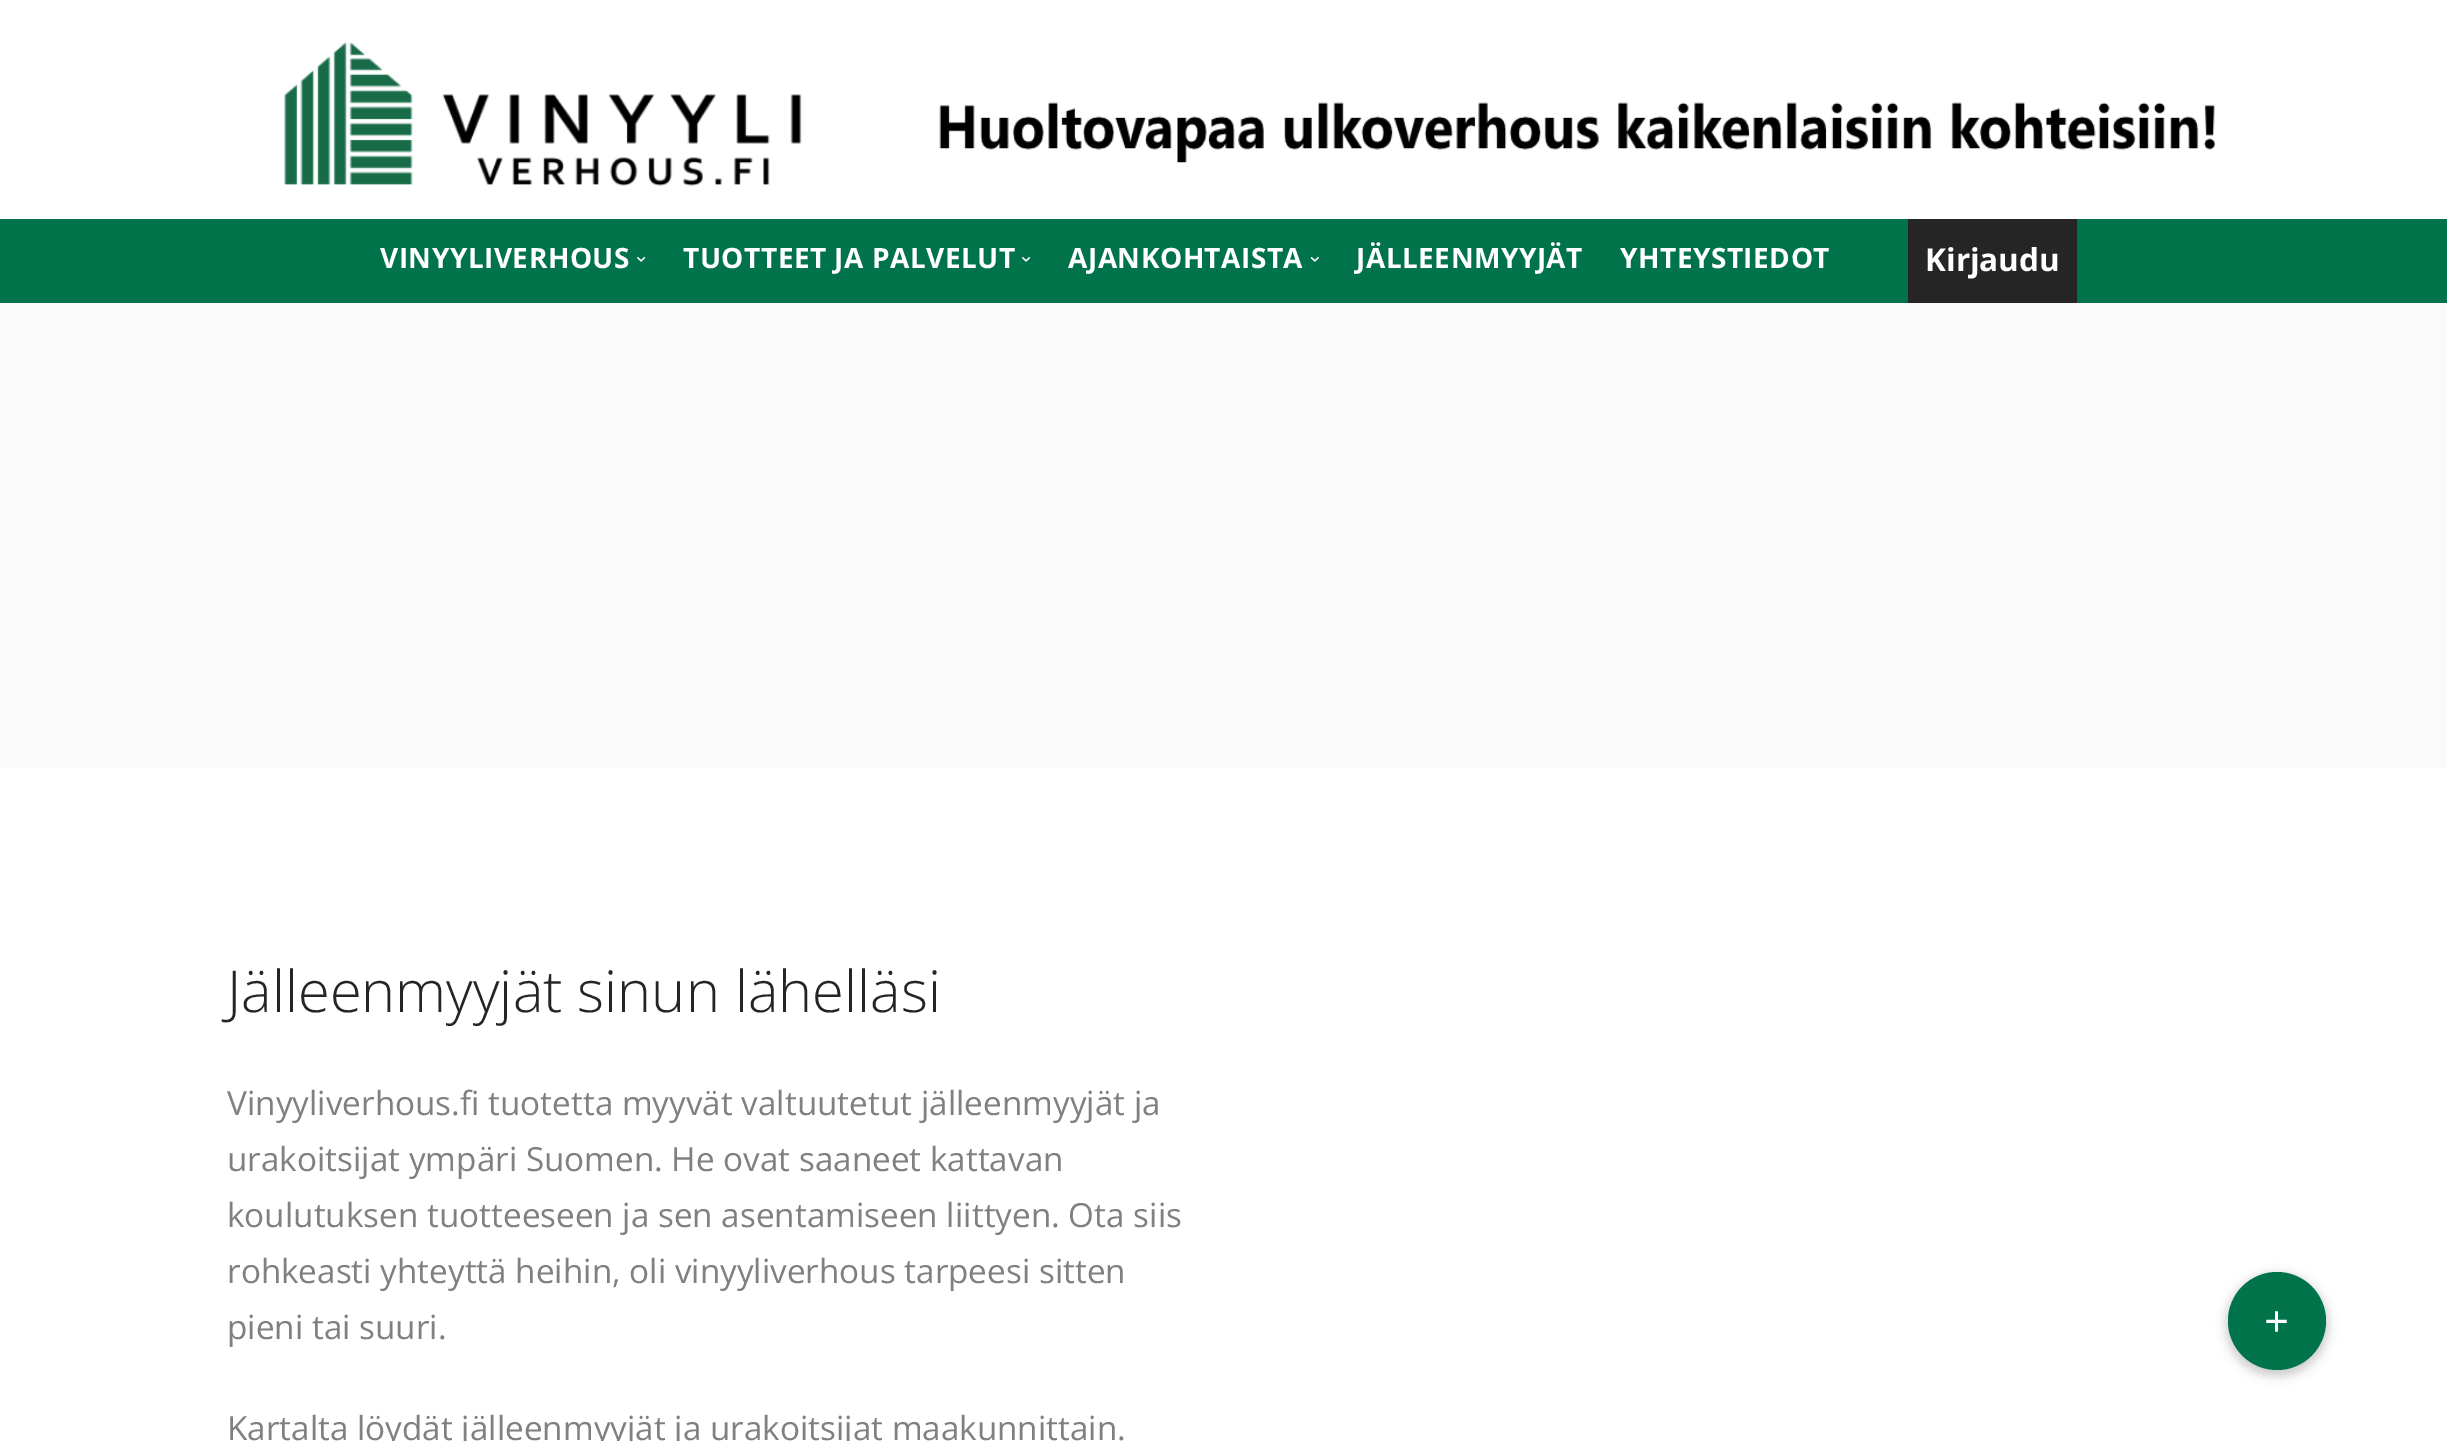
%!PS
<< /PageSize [2447 1441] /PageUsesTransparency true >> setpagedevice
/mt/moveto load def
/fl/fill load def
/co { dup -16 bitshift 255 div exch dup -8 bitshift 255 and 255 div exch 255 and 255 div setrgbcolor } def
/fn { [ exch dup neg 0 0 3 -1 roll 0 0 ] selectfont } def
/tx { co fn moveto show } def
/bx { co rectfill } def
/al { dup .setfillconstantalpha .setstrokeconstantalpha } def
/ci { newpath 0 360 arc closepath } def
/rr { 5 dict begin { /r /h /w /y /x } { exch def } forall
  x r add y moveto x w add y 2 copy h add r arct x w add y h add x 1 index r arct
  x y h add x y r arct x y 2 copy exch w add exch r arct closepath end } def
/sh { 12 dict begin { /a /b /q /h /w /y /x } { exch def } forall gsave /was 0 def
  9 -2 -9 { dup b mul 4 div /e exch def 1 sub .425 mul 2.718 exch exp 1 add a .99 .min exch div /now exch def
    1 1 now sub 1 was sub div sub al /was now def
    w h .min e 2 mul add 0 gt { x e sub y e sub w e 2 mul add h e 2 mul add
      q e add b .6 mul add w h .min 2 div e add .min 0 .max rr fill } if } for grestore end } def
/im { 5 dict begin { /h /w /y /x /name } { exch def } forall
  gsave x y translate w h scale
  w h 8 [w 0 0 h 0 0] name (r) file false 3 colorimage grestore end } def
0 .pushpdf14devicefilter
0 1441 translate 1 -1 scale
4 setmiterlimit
0 0 2447 1441 16#FFFFFF bx
(media/1.raw) 284 42 1932 144 im
0 219 2447 84 16#00734A bx
(media/2.raw) 637 257 9 5 im
(media/2.raw) 1022 257 9 5 im
(media/3.raw) 1310 257 9 5 im
1908 219 169 84 16#252525 bx
0 303 2447 465 16#FAFAFA bx
16#000000 co
2226 1274 102 102 51 5 .2 sh
16#00734A co
2277 1321 49 ci fl
/OpenSans-Bold 28 fn
16#FFFFFF co
380 268 mt .5 0 (VINYYLIVERHOUS) ashow
683 268 mt .5 0 (TUOTTEET JA PALVELUT) ashow
1068 268 mt .5 0 (AJANKOHTAISTA) ashow
1356 268 mt .5 0 (JÄLLEENMYYJÄT) ashow
1620 268 mt .5 0 (YHTEYSTIEDOT) ashow
(Kirjaudu) 1925 271 /OpenSans-Bold 31.5 16#FFFFFF tx
(Jälleenmyyjät sinun lähelläsi) 227 1012 /OpenSans-Light 57.75 16#252525 tx
(Vinyyliverhous.fi tuotetta myyvät valtuutetut jälleenmyyjät ja) 227 1115 /OpenSans-Regular 33.25 16#808080 tx
(urakoitsijat ympäri Suomen. He ovat saaneet kattavan) 227 1171 /OpenSans-Regular 33.25 16#808080 tx
(koulutuksen tuotteeseen ja sen asentamiseen liittyen. Ota siis) 227 1227 /OpenSans-Regular 33.25 16#808080 tx
(rohkeasti yhteyttä heihin, oli vinyyliverhous tarpeesi sitten) 227 1283 /OpenSans-Regular 33.25 16#808080 tx
(pieni tai suuri.) 227 1339 /OpenSans-Regular 33.25 16#808080 tx
(Kartalta löydät jälleenmyyjät ja urakoitsijat maakunnittain.) 227 1440 /OpenSans-Regular 33.25 16#808080 tx
(+) 2264 1336 /LiberationSerif-Bold 44 16#FFFFFF tx
.poppdf14devicefilter showpage
